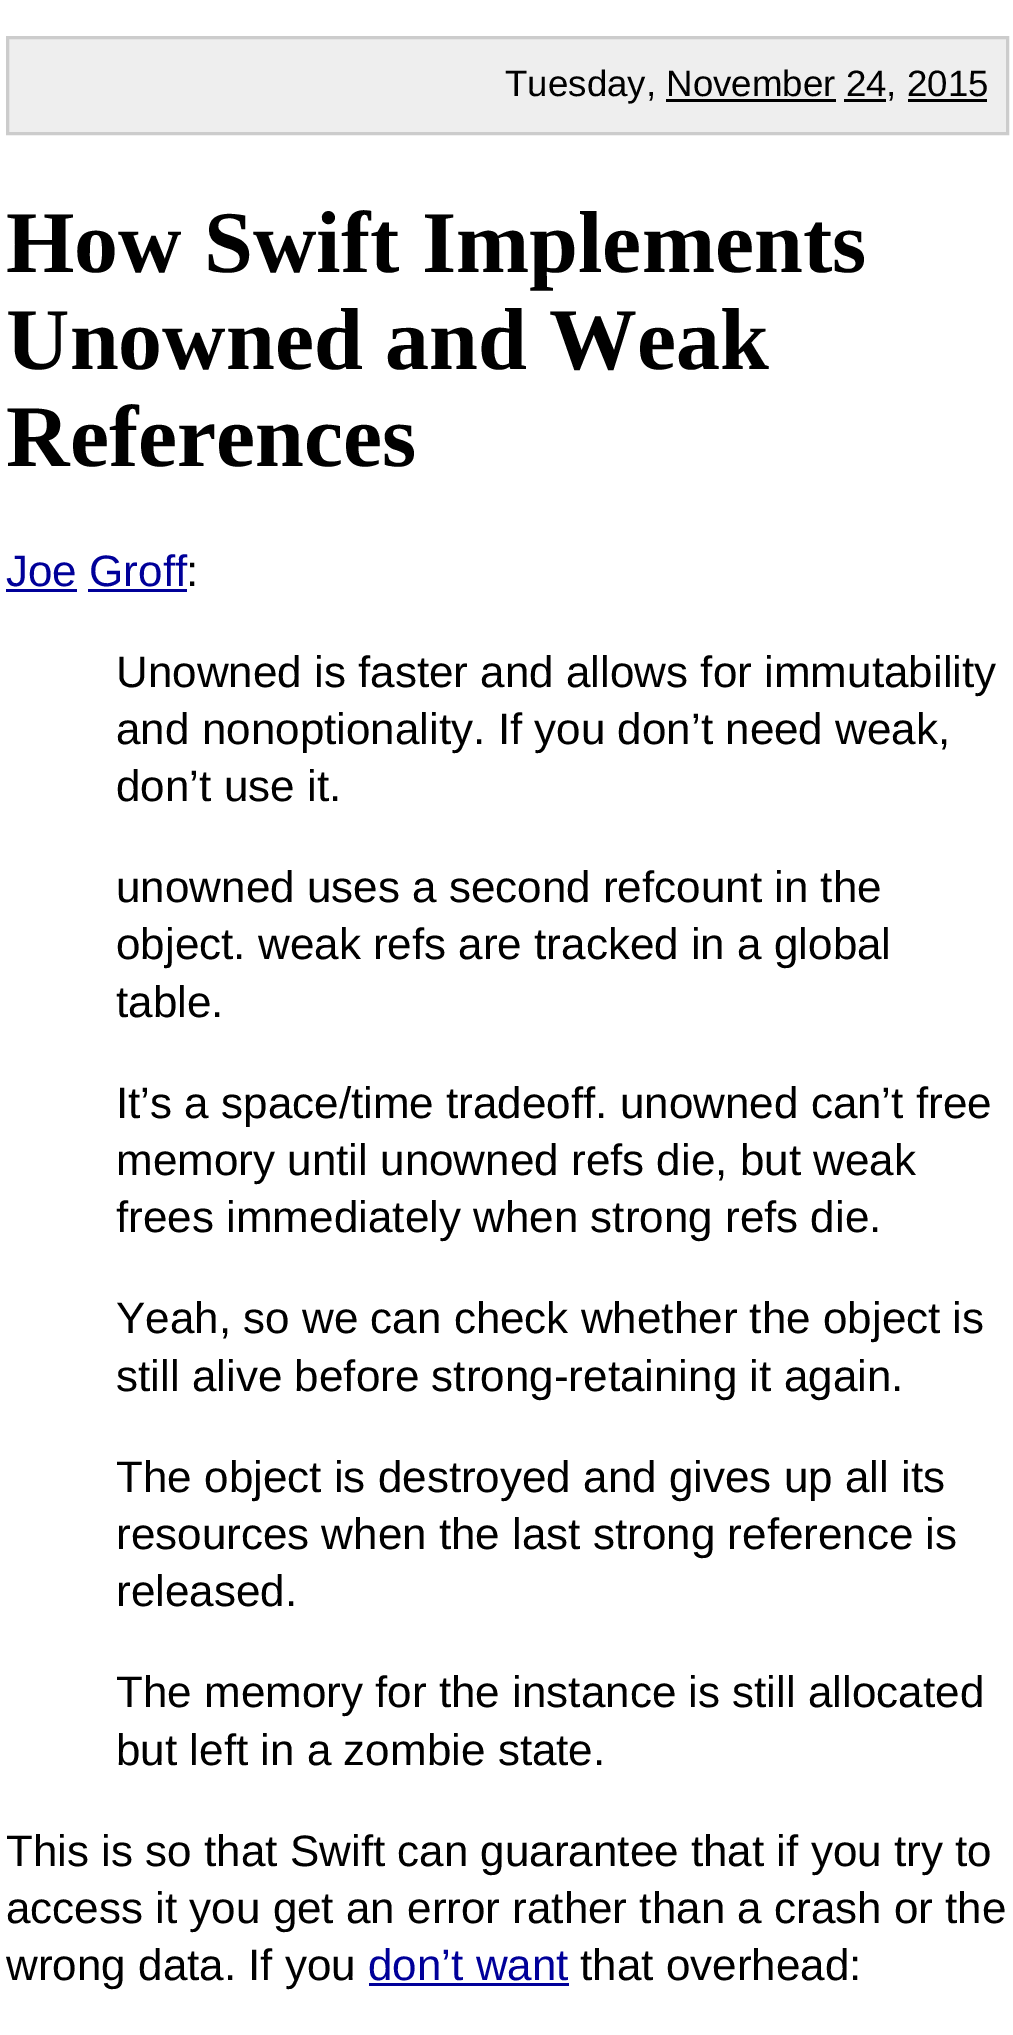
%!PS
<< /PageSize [1013 2035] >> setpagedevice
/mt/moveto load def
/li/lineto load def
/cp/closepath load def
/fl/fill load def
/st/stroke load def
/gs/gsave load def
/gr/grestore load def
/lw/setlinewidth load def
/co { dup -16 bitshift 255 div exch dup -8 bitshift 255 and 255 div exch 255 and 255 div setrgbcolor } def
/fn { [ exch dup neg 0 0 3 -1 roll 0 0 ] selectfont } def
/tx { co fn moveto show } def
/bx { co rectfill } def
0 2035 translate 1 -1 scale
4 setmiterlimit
0 0 1013 2035 16#FFFFFF bx
16#EEEEEE co
7.5 37.5 mt 1007.5 37.5 li 1007.5 133.5 li 7.5 133.5 li cp gs fl gr
16#CCCCCC co
3 lw
st
666 99 170 3 16#000000 bx
844 99 42 3 16#000000 bx
908 99 79 3 16#000000 bx
6 589 71 3 16#000099 bx
88 589 99 3 16#000099 bx
369 1983 200 3 16#000099 bx
(Tuesday, November 24, 2015) 505 96 /LiberationSans-Regular 36.7 16#000000 tx
(How Swift Implements) 6 272 /LiberationSerif-Bold 88 16#000000 tx
(Unowned and Weak) 6 369 /LiberationSerif-Bold 88 16#000000 tx
(References) 6 466 /LiberationSerif-Bold 88 16#000000 tx
(Joe Groff) 6 586 /LiberationSans-Regular 44 16#000099 tx
(:) 186 586 /LiberationSans-Regular 44 16#000000 tx
(Unowned is faster and allows for immutability) 116 687 /LiberationSans-Regular 44 16#000000 tx
(and nonoptionality. If you don’t need weak,) 116 744 /LiberationSans-Regular 44 16#000000 tx
(don’t use it.) 116 801 /LiberationSans-Regular 44 16#000000 tx
(unowned uses a second refcount in the) 116 902 /LiberationSans-Regular 44 16#000000 tx
(object. weak refs are tracked in a global) 116 959 /LiberationSans-Regular 44 16#000000 tx
(table.) 116 1017 /LiberationSans-Regular 44 16#000000 tx
(It’s a space/time tradeoff. unowned can’t free) 116 1118 /LiberationSans-Regular 44 16#000000 tx
(memory until unowned refs die, but weak) 116 1175 /LiberationSans-Regular 44 16#000000 tx
(frees immediately when strong refs die.) 116 1232 /LiberationSans-Regular 44 16#000000 tx
(Yeah, so we can check whether the object is) 116 1333 /LiberationSans-Regular 44 16#000000 tx
(still alive before strong-retaining it again.) 116 1391 /LiberationSans-Regular 44 16#000000 tx
(The object is destroyed and gives up all its) 116 1492 /LiberationSans-Regular 44 16#000000 tx
(resources when the last strong reference is) 116 1549 /LiberationSans-Regular 44 16#000000 tx
(released.) 116 1606 /LiberationSans-Regular 44 16#000000 tx
(The memory for the instance is still allocated) 116 1707 /LiberationSans-Regular 44 16#000000 tx
(but left in a zombie state.) 116 1765 /LiberationSans-Regular 44 16#000000 tx
(This is so that Swift can guarantee that if you try to) 6 1866 /LiberationSans-Regular 44 16#000000 tx
(access it you get an error rather than a crash or the) 6 1923 /LiberationSans-Regular 44 16#000000 tx
(wrong data. If you) 6 1980 /LiberationSans-Regular 44 16#000000 tx
(don’t want) 368 1980 /LiberationSans-Regular 44 16#000099 tx
(that overhead:) 580 1980 /LiberationSans-Regular 44 16#000000 tx
showpage
